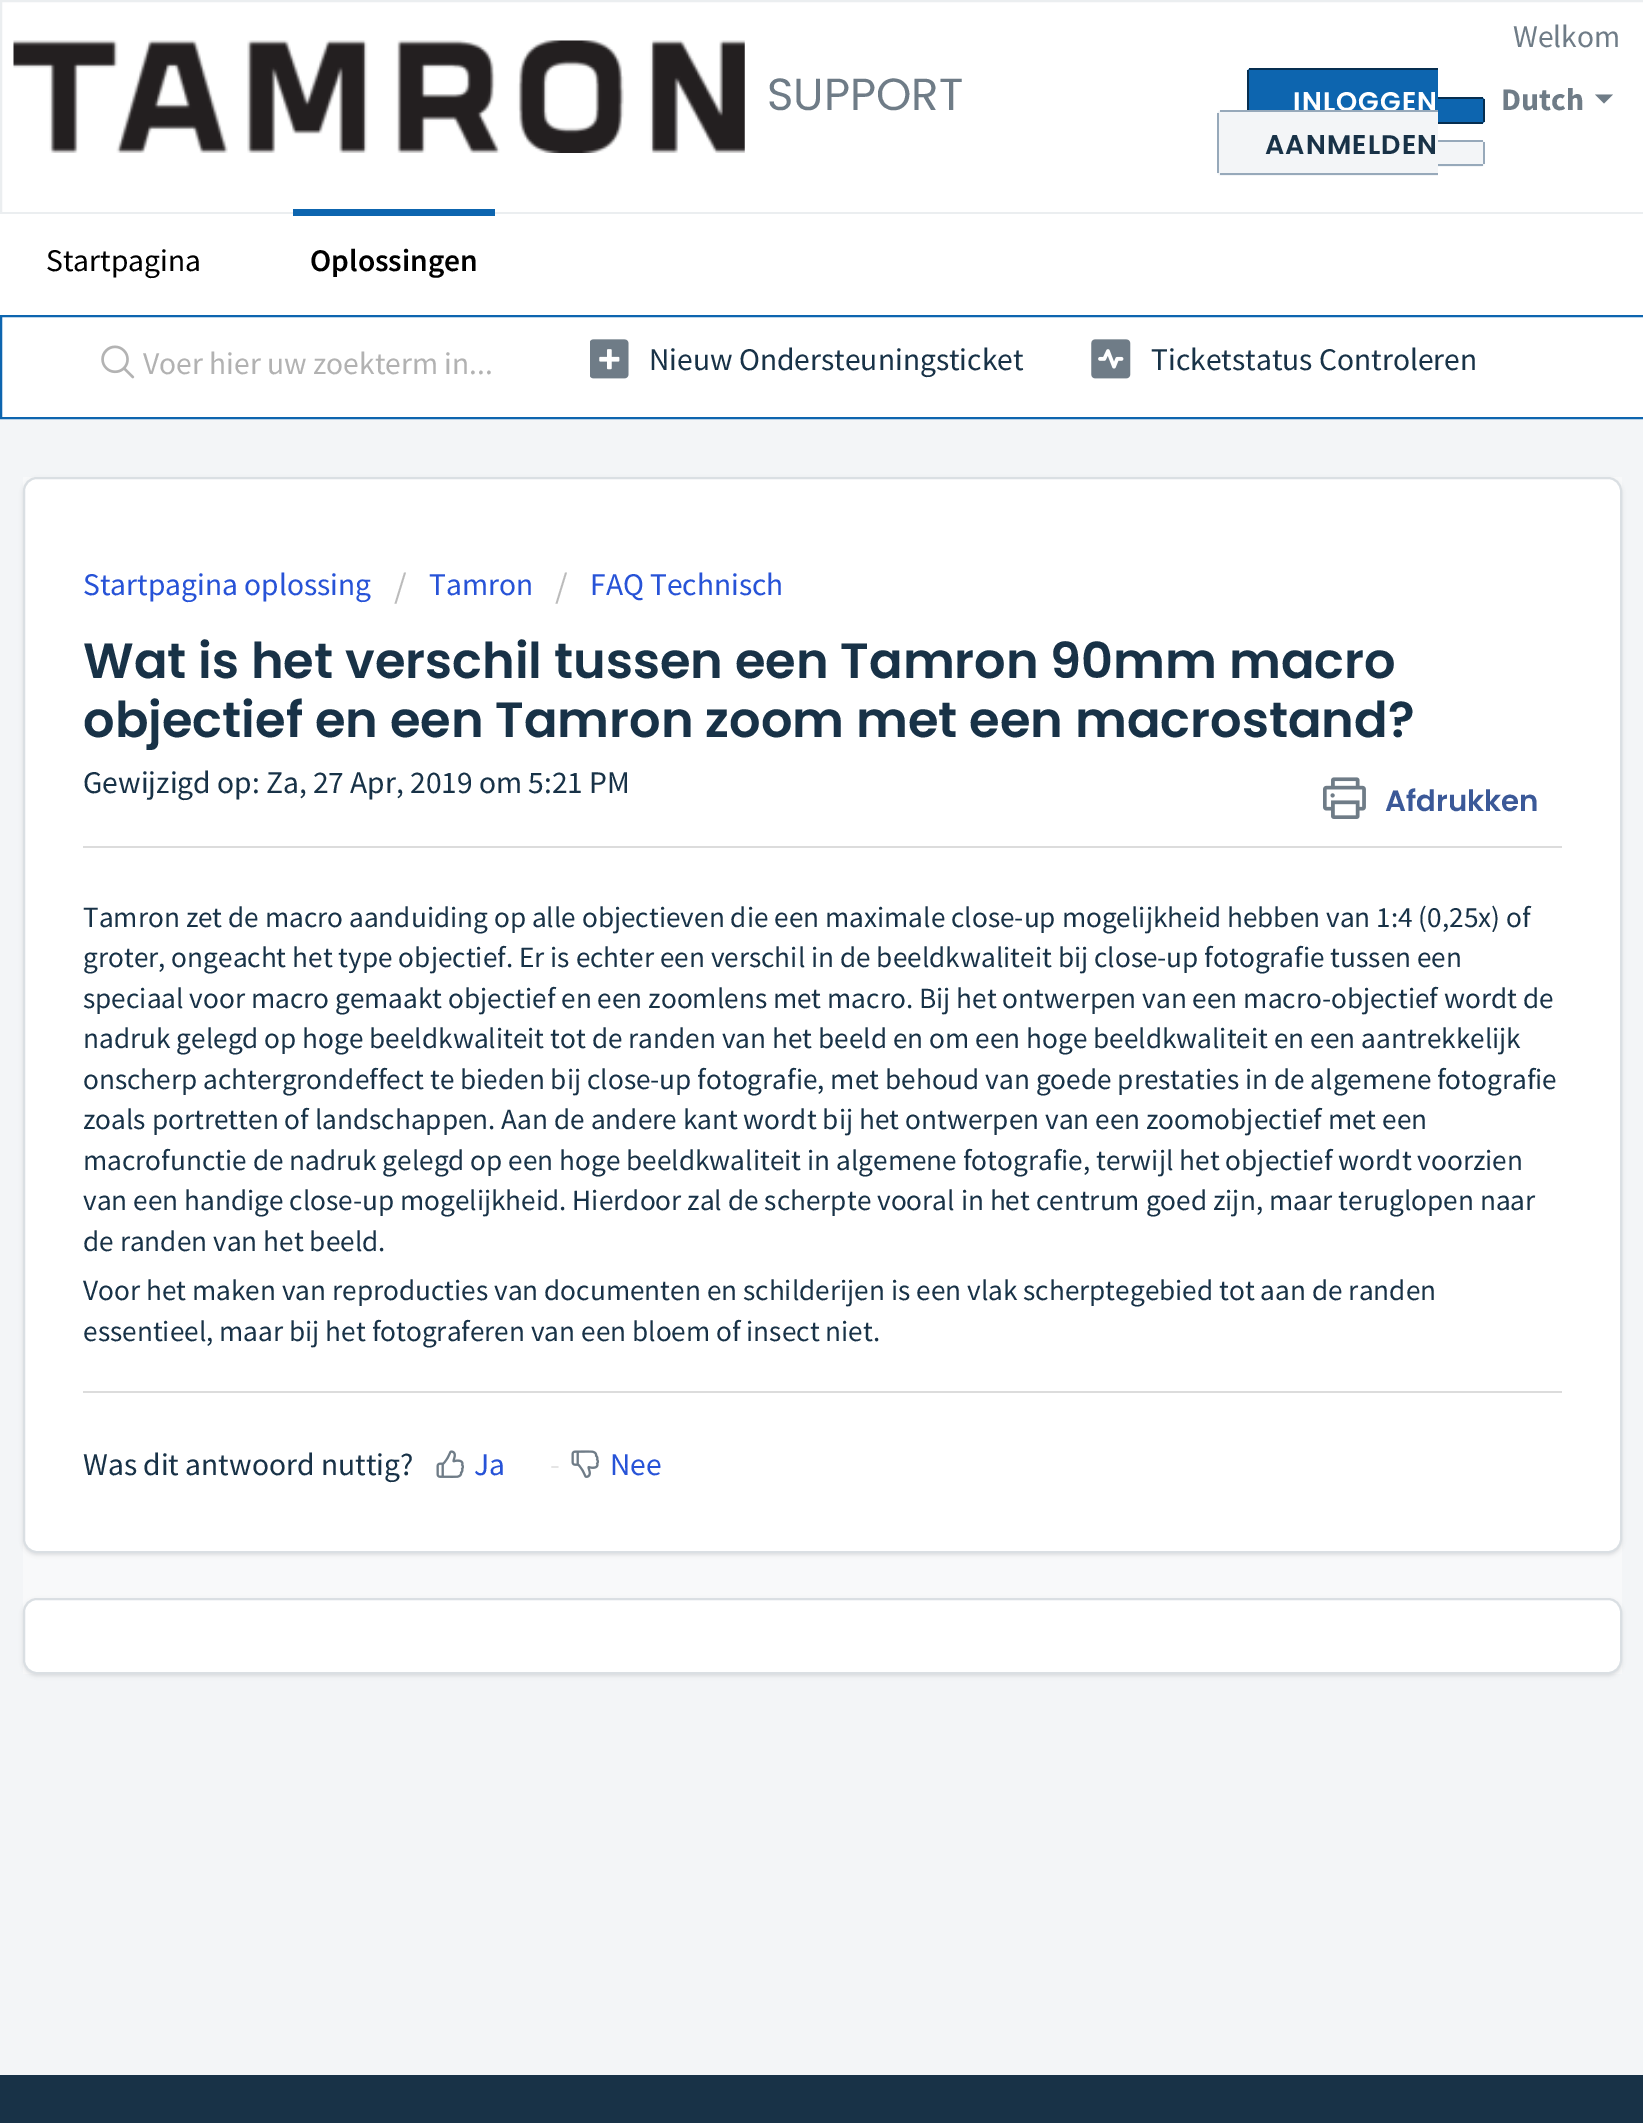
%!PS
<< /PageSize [1643 2123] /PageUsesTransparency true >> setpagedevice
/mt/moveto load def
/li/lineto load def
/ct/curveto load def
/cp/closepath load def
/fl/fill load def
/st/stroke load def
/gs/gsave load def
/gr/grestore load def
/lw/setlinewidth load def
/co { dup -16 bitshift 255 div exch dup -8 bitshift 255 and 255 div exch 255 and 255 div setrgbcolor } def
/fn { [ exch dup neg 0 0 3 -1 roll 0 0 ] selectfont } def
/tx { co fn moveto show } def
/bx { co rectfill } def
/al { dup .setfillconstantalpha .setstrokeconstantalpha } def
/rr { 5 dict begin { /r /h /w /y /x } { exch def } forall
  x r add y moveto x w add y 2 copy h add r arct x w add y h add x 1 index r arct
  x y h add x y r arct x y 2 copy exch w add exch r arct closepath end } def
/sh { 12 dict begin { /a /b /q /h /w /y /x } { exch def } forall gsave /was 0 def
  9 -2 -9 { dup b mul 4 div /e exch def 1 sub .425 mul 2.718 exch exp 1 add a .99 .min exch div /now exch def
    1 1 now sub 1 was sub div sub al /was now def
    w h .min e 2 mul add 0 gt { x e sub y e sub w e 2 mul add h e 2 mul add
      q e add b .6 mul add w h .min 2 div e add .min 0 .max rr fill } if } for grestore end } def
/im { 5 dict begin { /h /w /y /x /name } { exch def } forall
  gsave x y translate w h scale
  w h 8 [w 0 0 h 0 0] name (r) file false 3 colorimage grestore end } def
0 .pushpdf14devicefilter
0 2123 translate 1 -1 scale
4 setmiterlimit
0 0 1643 2123 16#F3F5F7 bx
16#FFFFFF co
1 1 mt 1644 1 li 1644 213 li 1 213 li cp gs fl gr
16#EBEEF0 co
2 lw
st
(media/1.raw) 13 40 732 113 im
16#0D65AF co
1252 68 mt 1438 68 li 1438 133 li 1252 133 li 1249 133 1247 131 1247 128 ct 1247 73 li 1247 70 1249 68 1252 68 ct cp fl
1249 68 189 2 16#062E50 bx
1247 70 2 40 16#062E50 bx
16#0D65AF co
1438 97 mt 1480 97 li 1483 97 1485 99 1485 102 ct 1485 119 li 1485 122 1483 124 1480 124 ct 1438 124 li cp fl
1438 97 45 2 16#062E50 bx
1483 99 2 23 16#062E50 bx
1438 122 45 2 16#062E50 bx
16#6F7C87 co
1595 94.5 mt 1613 94.5 li 1604 103.5 li cp fl
16#F3F5F7 co
1438 140 mt 1480 140 li 1483 140 1485 142 1485 145 ct 1485 162 li 1485 165 1483 167 1480 167 ct 1438 167 li cp fl
1438 140 45 2 16#97A9BA bx
1483 142 2 22 16#97A9BA bx
1438 164 45 2 16#97A9BA bx
0 214 1643 101 16#FFFFFF bx
293 209 202 7 16#0D65AF bx
16#FFFFFF co
1 316 mt 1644 316 li 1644 418 li 1 418 li cp gs fl gr
16#0D65AF co
st
(media/2.raw) 101 345 34 34 im
(media/3.raw) 590 339 39 40 im
(media/4.raw) 1091 339 40 40 im
23 477 1599 1197 16#F8F9FA bx
16#3F3F44 co
23 479 1599 1076 14 2 .15 sh
16#FFFFFF co
24 478 1597 1074 13 rr gs fl gr
16#DADFE3 co
st
(media/5.raw) 1323 777 43 42 im
83 846 1479 2 16#DCDCDC bx
83 1391 1479 2 16#DCDCDC bx
(media/6.raw) 436 1450 28 28 im
(media/7.raw) 571 1450 29 28 im
16#3F3F44 co
23 1600 1599 76 14 2 .15 sh
16#FFFFFF co
24 1599 1597 74 13 rr gs fl gr
16#DADFE3 co
st
0 2075 1643 48 16#183247 bx
(SUPPORT) 767 110 /Poppins-Regular 45 16#6F7C87 tx
(Welkom) 1513 47 /SourceSansPro-Regular 31.5 16#6F7C87 tx
/Poppins-SemiBold 27 fn
16#FFFFFF co
1293 111 mt 1.1 0 (INLOGGEN) ashow
(Dutch) 1501 110 /SourceSansPro-Bold 31.5 16#6F7C87 tx
16#F3F5F7 co
1222 110 mt 1438 110 li 1438 176 li 1222 176 li 1219 176 1217 174 1217 171 ct 1217 115 li 1217 112 1219 110 1222 110 ct cp fl
/Poppins-SemiBold 27 fn
16#183247 co
1265 154 mt 1.1 0 (AANMELDEN) ashow
1220 110 218 2 16#97A9BA bx
1220 173 218 2 16#97A9BA bx
1217 113 2 60 16#97A9BA bx
(Startpagina) 46 271 /SourceSansPro-Regular 31.5 16#000000 tx
(Oplossingen) 310 271 /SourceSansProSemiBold-SemiBold 31.5 16#000000 tx
(Voer hier uw zoekterm in...) 143 374 /SourceSansPro-Regular 31.5 16#B2B2B2 tx
(Nieuw Ondersteuningsticket) 649 370 /SourceSansPro-Regular 31.5 16#183247 tx
(Ticketstatus Controleren) 1151 370 /SourceSansPro-Regular 31.5 16#183247 tx
(Startpagina oplossing) 83 595 /SourceSansPro-Regular 31.5 16#2753D7 tx
(/) 394 598 /SourceSansPro-Regular 36 16#BBBBBB tx
(Tamron) 429 595 /SourceSansPro-Regular 31.5 16#2753D7 tx
(/) 555 598 /SourceSansPro-Regular 36 16#BBBBBB tx
(FAQ Technisch) 590 595 /SourceSansPro-Regular 31.5 16#2753D7 tx
(Wat is het verschil tussen een Tamron 90mm macro) 83 678 /Poppins-SemiBold 49.5 16#183247 tx
(objectief en een Tamron zoom met een macrostand?) 83 737 /Poppins-SemiBold 49.5 16#183247 tx
(Afdrukken) 1385 811 /Poppins-SemiBold 29.25 16#3B5998 tx
(Gewijzigd op: Za, 27 Apr, 2019 om 5:21 PM) 83 793 /SourceSansPro-Regular 31.5 16#183247 tx
(Tamron zet de macro aanduiding op alle objectieven die een maximale close-up mogelijkheid hebben van 1:4 \(0,25x\) of) 83 927 /SourceSansPro-Regular 29.25 16#183247 tx
(groter, ongeacht het type objectief. Er is echter een verschil in de beeldkwaliteit bij close-up fotografie tussen een) 83 967 /SourceSansPro-Regular 29.25 16#183247 tx
(speciaal voor macro gemaakt objectief en een zoomlens met macro. Bij het ontwerpen van een macro-objectief wordt de) 83 1008 /SourceSansPro-Regular 29.25 16#183247 tx
(nadruk gelegd op hoge beeldkwaliteit tot de randen van het beeld en om een hoge beeldkwaliteit en een aantrekkelijk) 83 1048 /SourceSansPro-Regular 29.25 16#183247 tx
(onscherp achtergrondeffect te bieden bij close-up fotografie, met behoud van goede prestaties in de algemene fotografie) 83 1089 /SourceSansPro-Regular 29.25 16#183247 tx
(zoals portretten of landschappen. Aan de andere kant wordt bij het ontwerpen van een zoomobjectief met een) 83 1129 /SourceSansPro-Regular 29.25 16#183247 tx
(macrofunctie de nadruk gelegd op een hoge beeldkwaliteit in algemene fotografie, terwijl het objectief wordt voorzien) 83 1170 /SourceSansPro-Regular 29.25 16#183247 tx
(van een handige close-up mogelijkheid. Hierdoor zal de scherpte vooral in het centrum goed zijn, maar teruglopen naar) 83 1210 /SourceSansPro-Regular 29.25 16#183247 tx
(de randen van het beeld.) 83 1251 /SourceSansPro-Regular 29.25 16#183247 tx
(Voor het maken van reproducties van documenten en schilderijen is een vlak scherptegebied tot aan de randen) 83 1300 /SourceSansPro-Regular 29.25 16#183247 tx
(essentieel, maar bij het fotograferen van een bloem of insect niet.) 83 1341 /SourceSansPro-Regular 29.25 16#183247 tx
(Was dit antwoord nuttig?) 83 1475 /SourceSansPro-Regular 31.5 16#183247 tx
(Ja) 474 1475 /SourceSansPro-Regular 31.5 16#2753D7 tx
(-) 550 1475 /SourceSansPro-Regular 31.5 16#E5E5E5 tx
(Nee) 610 1475 /SourceSansPro-Regular 31.5 16#2753D7 tx
.poppdf14devicefilter showpage
